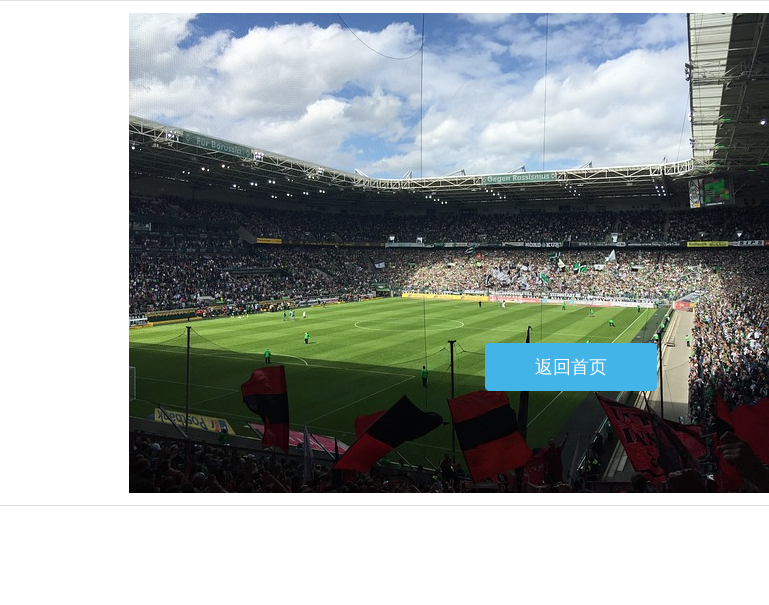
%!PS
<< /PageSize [769 605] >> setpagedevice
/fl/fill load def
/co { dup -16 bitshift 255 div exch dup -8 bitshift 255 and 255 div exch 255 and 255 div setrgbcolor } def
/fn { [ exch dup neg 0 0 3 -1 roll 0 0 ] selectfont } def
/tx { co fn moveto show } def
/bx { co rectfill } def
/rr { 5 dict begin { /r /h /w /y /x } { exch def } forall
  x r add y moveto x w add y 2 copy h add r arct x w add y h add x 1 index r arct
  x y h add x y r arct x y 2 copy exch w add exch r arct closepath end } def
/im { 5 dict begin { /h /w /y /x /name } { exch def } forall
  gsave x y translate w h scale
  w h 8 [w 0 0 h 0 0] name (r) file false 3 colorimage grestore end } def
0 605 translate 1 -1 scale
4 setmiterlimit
0 0 769 605 16#FFFFFF bx
0 0 769 1 16#E0E0E0 bx
0 505 769 1 16#E0E0E0 bx
(media/1.raw) 129 13 640 480 im
16#43B4E8 co
485 343 172 48 5 rr fl
(返回首页) 535 373 /WenQuanYiZenHei-Medium 18 16#FFFFFF tx
showpage
